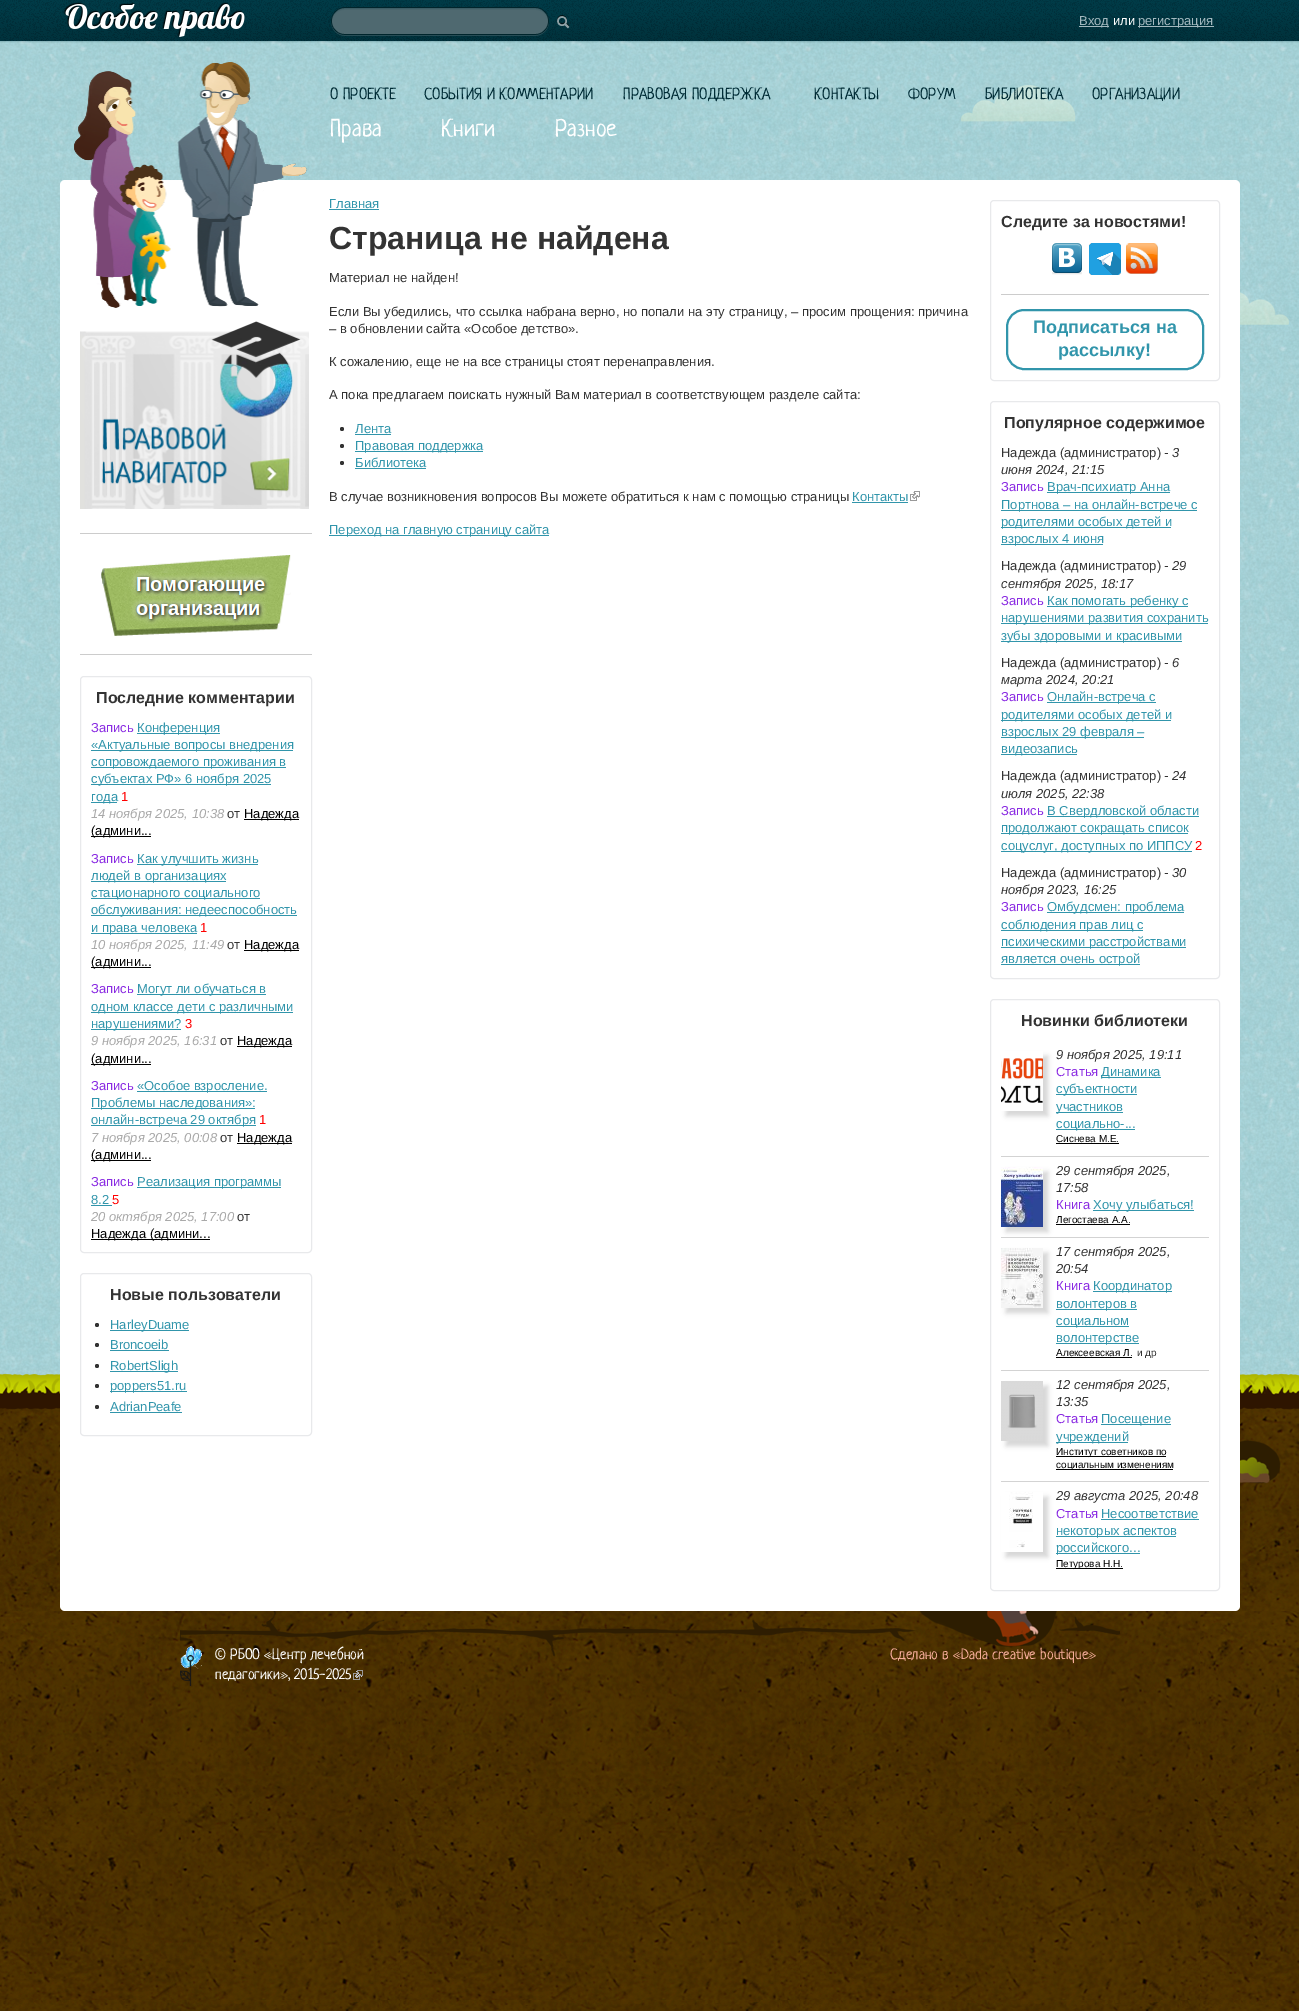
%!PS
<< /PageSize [1299 2011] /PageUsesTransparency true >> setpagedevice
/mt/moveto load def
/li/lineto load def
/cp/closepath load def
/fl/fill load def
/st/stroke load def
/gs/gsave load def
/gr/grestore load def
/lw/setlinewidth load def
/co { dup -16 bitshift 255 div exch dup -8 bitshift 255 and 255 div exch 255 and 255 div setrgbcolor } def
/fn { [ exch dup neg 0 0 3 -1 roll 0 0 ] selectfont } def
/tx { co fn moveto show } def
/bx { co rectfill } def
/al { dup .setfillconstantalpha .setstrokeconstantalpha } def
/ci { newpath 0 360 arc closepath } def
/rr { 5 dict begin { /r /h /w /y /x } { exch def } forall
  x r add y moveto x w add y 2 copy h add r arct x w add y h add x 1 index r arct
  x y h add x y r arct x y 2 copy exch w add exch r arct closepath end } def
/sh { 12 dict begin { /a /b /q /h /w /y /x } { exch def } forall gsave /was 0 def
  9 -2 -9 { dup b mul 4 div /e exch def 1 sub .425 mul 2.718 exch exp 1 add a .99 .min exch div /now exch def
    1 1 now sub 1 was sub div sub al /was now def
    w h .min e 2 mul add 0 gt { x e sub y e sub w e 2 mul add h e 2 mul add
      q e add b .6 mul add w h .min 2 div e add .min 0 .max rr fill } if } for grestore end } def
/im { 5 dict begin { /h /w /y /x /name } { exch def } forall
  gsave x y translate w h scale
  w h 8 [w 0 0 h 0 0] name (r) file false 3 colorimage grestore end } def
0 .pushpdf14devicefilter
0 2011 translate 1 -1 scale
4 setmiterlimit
0 0 1299 2011 16#FFFFFF bx
(media/1.raw) 0 1611 1299 400 im
(media/2.raw) 0 41 1299 1335 im
(media/3.raw) 960 85 329 240 im
(media/4.raw) 0 0 1299 43 im
(media/5.raw) 63 2 182 36 im
(media/6.raw) 74 62 233 118 im
(media/7.raw) 331 7 239 29 im
1079 26 30 1 16#A3B9BF bx
1138 26 76 1 16#A3B9BF bx
(media/21.raw) 0 1407 1299 204 im
(media/20.raw) 0 1373 1299 37 im
(media/22.raw) 59 1440 1222 44 im
16#FFFFFF co
60 180 1180 1431 5 rr fl
(media/8.raw) 80 321 229 188 im
80 533 232 1 16#CCCCCC bx
(media/9.raw) 101 555 190 81 im
80 654 232 1 16#CCCCCC bx
16#E8E9EB co
80.5 676.5 231 576 3.5 rr st
137 733 83 1 16#3195AB bx
91 750 202 1 16#3195AB bx
91 767 195 1 16#3195AB bx
91 784 180 1 16#3195AB bx
91 802 26 1 16#3195AB bx
244 819 55 1 16#000000 bx
91 836 60 1 16#000000 bx
137 864 121 1 16#3195AB bx
91 881 135 1 16#3195AB bx
91 898 169 1 16#3195AB bx
91 915 206 1 16#3195AB bx
91 933 106 1 16#3195AB bx
244 950 55 1 16#000000 bx
91 967 60 1 16#000000 bx
137 994 129 1 16#3195AB bx
91 1012 202 1 16#3195AB bx
91 1029 90 1 16#3195AB bx
237 1046 55 1 16#000000 bx
91 1064 60 1 16#000000 bx
137 1091 130 1 16#3195AB bx
91 1108 164 1 16#3195AB bx
91 1125 165 1 16#3195AB bx
237 1143 55 1 16#000000 bx
91 1160 60 1 16#000000 bx
137 1187 144 1 16#3195AB bx
91 1205 21 1 16#3195AB bx
91 1239 119 1 16#000000 bx
16#E8E9EB co
80.5 1273.5 231 162 3.5 rr st
16#333333 co
97 1325 2 ci fl
110 1330 79 1 16#3195AB bx
16#333333 co
97 1345 2 ci fl
110 1350 59 1 16#3195AB bx
16#333333 co
97 1366 2 ci fl
110 1371 68 1 16#3195AB bx
16#333333 co
97 1386 2 ci fl
110 1391 77 1 16#3195AB bx
16#333333 co
97 1407 2 ci fl
110 1412 72 1 16#3195AB bx
(media/10.raw) 90 180 185 128 im
329 209 50 1 16#3195AB bx
16#333333 co
342 429 2 ci fl
355 434 36 1 16#3195AB bx
16#333333 co
342 446 2 ci fl
355 451 128 1 16#3195AB bx
16#333333 co
342 463 2 ci fl
355 468 71 1 16#3195AB bx
852 502 56 1 16#3195AB bx
(media/11.raw) 910 491 10 10 im
329 535 220 1 16#3195AB bx
16#E8E9EB co
990.5 200.5 229 180 3.5 rr st
(media/12.raw) 1052 243 30 32 im
(media/13.raw) 1089 243 32 32 im
(media/14.raw) 1126 243 32 31 im
1001 294 208 1 16#CCCCCC bx
16#3195AB co
2 lw
1007 310 196 59 17 rr st
16#E8E9EB co
1 lw
990.5 401.5 229 577 3.5 rr st
1047 492 123 1 16#3195AB bx
1001 510 196 1 16#3195AB bx
1001 527 170 1 16#3195AB bx
1001 544 102 1 16#3195AB bx
1047 606 141 1 16#3195AB bx
1001 623 207 1 16#3195AB bx
1001 641 181 1 16#3195AB bx
1047 702 109 1 16#3195AB bx
1001 720 170 1 16#3195AB bx
1001 737 143 1 16#3195AB bx
1001 754 76 1 16#3195AB bx
1047 816 152 1 16#3195AB bx
1001 833 187 1 16#3195AB bx
1001 851 191 1 16#3195AB bx
1047 912 137 1 16#3195AB bx
1001 930 142 1 16#3195AB bx
1001 947 185 1 16#3195AB bx
1001 964 139 1 16#3195AB bx
16#E8E9EB co
990.5 999.5 229 591 3.5 rr st
1056 1094 81 1 16#3195AB bx
1056 1112 67 1 16#3195AB bx
gs
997 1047 mt 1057 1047 li 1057 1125 li 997 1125 li cp 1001 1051 mt 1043 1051 li 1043 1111 li 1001 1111 li cp eoclip newpath
16#D5D5D5 co
1006 1056 42 60 0 2.5 1 sh
gr
(media/15.raw) 1001 1058 42 45 im
1101 1077 60 1 16#3195AB bx
1056 1129 79 1 16#3195AB bx
1056 1143 63 1 16#000000 bx
1001 1156 208 1 16#D3D3D3 bx
1056 1224 74 1 16#000000 bx
16#D5D5D5 co
1006 1172 42 60 0 2.5 1 sh
(media/16.raw) 1001 1167 42 60 im
1093 1210 101 1 16#3195AB bx
1001 1237 208 1 16#D3D3D3 bx
1056 1309 81 1 16#3195AB bx
16#D5D5D5 co
1006 1253 42 60 0 2.5 1 sh
(media/17.raw) 1001 1248 42 60 im
1093 1291 79 1 16#3195AB bx
1056 1326 73 1 16#3195AB bx
1056 1343 83 1 16#3195AB bx
1056 1357 76 1 16#000000 bx
1001 1370 208 1 16#D3D3D3 bx
1056 1442 72 1 16#3195AB bx
16#D5D5D5 co
1006 1386 42 60 0 2.5 1 sh
(media/18.raw) 1001 1381 42 60 im
1101 1424 70 1 16#3195AB bx
1056 1456 110 1 16#000000 bx
1056 1469 117 1 16#000000 bx
1001 1481 208 1 16#D3D3D3 bx
1056 1536 120 1 16#3195AB bx
1056 1553 84 1 16#3195AB bx
gs
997 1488 mt 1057 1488 li 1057 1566 li 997 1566 li cp 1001 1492 mt 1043 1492 li 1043 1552 li 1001 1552 li cp eoclip newpath
16#D5D5D5 co
1006 1497 42 60 0 2.5 1 sh
gr
(media/19.raw) 1009 1492 24 56 im
1101 1519 98 1 16#3195AB bx
1056 1568 67 1 16#000000 bx
(media/23.raw) 180 1611 940 46 im
(media/24.raw) 180 1646 22 40 im
(media/25.raw) 353 1670 10 10 im
(Вход) 1079 25 /LiberationSans-Regular 13 16#A3B9BF tx
(или) 1113 25 /LiberationSans-Regular 13 16#FFFFFF tx
(регистрация) 1138 25 /LiberationSans-Regular 13 16#A3B9BF tx
(О ПРОЕКТЕ) 330 99 /Neucha-Regular 16 16#002C36 tx
(СОБЫТИЯ И КОММЕНТАРИИ) 424 99 /Neucha-Regular 16 16#002C36 tx
(ПРАВОВАЯ ПОДДЕРЖКА) 623 99 /Neucha-Regular 16 16#002C36 tx
(КОНТАКТЫ) 814 99 /Neucha-Regular 16 16#002C36 tx
(ФОРУМ) 908 99 /Neucha-Regular 16 16#002C36 tx
(БИБЛИОТЕКА) 985 99 /Neucha-Regular 16 16#002C36 tx
(ОРГАНИЗАЦИИ) 1092 99 /Neucha-Regular 16 16#002C36 tx
(Права) 330 136 /Neucha-Regular 24 16#FFFFFF tx
(Книги) 441 136 /Neucha-Regular 24 16#FFFFFF tx
(Разное) 555 136 /Neucha-Regular 24 16#FFFFFF tx
(Последние комментарии) 96 703 /LiberationSans-Bold 16 16#333333 tx
(Запись) 91 732 /LiberationSans-Regular 13 16#8A2BE2 tx
(Конференция) 137 732 /LiberationSans-Regular 13 16#3195AB tx
(«Актуальные вопросы внедрения) 91 749 /LiberationSans-Regular 13 16#3195AB tx
(сопровождаемого проживания в) 91 766 /LiberationSans-Regular 13 16#3195AB tx
(субъектах РФ» 6 ноября 2025) 91 783 /LiberationSans-Regular 13 16#3195AB tx
(года) 91 801 /LiberationSans-Regular 13 16#3195AB tx
(1) 121 801 /LiberationSans-Regular 13 16#FF0000 tx
(14 ноября 2025, 10:38) 91 818 /LiberationSans-Italic 13 16#A9A9A9 tx
(от) 227 818 /LiberationSans-Regular 13 16#333333 tx
(Надежда) 244 818 /LiberationSans-Regular 13 16#000000 tx
(\(админи...) 91 835 /LiberationSans-Regular 13 16#000000 tx
(Запись) 91 863 /LiberationSans-Regular 13 16#8A2BE2 tx
(Как улучшить жизнь) 137 863 /LiberationSans-Regular 13 16#3195AB tx
(людей в организациях) 91 880 /LiberationSans-Regular 13 16#3195AB tx
(стационарного социального) 91 897 /LiberationSans-Regular 13 16#3195AB tx
(обслуживания: недееспособность) 91 914 /LiberationSans-Regular 13 16#3195AB tx
(и права человека) 91 932 /LiberationSans-Regular 13 16#3195AB tx
(1) 200 932 /LiberationSans-Regular 13 16#FF0000 tx
(10 ноября 2025, 11:49) 91 949 /LiberationSans-Italic 13 16#A9A9A9 tx
(от) 227 949 /LiberationSans-Regular 13 16#333333 tx
(Надежда) 244 949 /LiberationSans-Regular 13 16#000000 tx
(\(админи...) 91 966 /LiberationSans-Regular 13 16#000000 tx
(Запись) 91 993 /LiberationSans-Regular 13 16#8A2BE2 tx
(Могут ли обучаться в) 137 993 /LiberationSans-Regular 13 16#3195AB tx
(одном классе дети с различными) 91 1011 /LiberationSans-Regular 13 16#3195AB tx
(нарушениями?) 91 1028 /LiberationSans-Regular 13 16#3195AB tx
(3) 185 1028 /LiberationSans-Regular 13 16#FF0000 tx
(9 ноября 2025, 16:31) 91 1045 /LiberationSans-Italic 13 16#A9A9A9 tx
(от) 220 1045 /LiberationSans-Regular 13 16#333333 tx
(Надежда) 237 1045 /LiberationSans-Regular 13 16#000000 tx
(\(админи...) 91 1063 /LiberationSans-Regular 13 16#000000 tx
(Запись) 91 1090 /LiberationSans-Regular 13 16#8A2BE2 tx
(«Особое взросление.) 137 1090 /LiberationSans-Regular 13 16#3195AB tx
(Проблемы наследования»:) 91 1107 /LiberationSans-Regular 13 16#3195AB tx
(онлайн-встреча 29 октября) 91 1124 /LiberationSans-Regular 13 16#3195AB tx
(1) 259 1124 /LiberationSans-Regular 13 16#FF0000 tx
(7 ноября 2025, 00:08) 91 1142 /LiberationSans-Italic 13 16#A9A9A9 tx
(от) 220 1142 /LiberationSans-Regular 13 16#333333 tx
(Надежда) 237 1142 /LiberationSans-Regular 13 16#000000 tx
(\(админи...) 91 1159 /LiberationSans-Regular 13 16#000000 tx
(Запись) 91 1186 /LiberationSans-Regular 13 16#8A2BE2 tx
(Реализация программы) 137 1186 /LiberationSans-Regular 13 16#3195AB tx
(8.2) 91 1204 /LiberationSans-Regular 13 16#3195AB tx
(5) 112 1204 /LiberationSans-Regular 13 16#FF0000 tx
(20 октября 2025, 17:00) 91 1221 /LiberationSans-Italic 13 16#A9A9A9 tx
(от) 237 1221 /LiberationSans-Regular 13 16#333333 tx
(Надежда \(админи...) 91 1238 /LiberationSans-Regular 13 16#000000 tx
(Новые пользователи) 110 1300 /LiberationSans-Bold 16 16#333333 tx
(HarleyDuame) 110 1329 /LiberationSans-Regular 13 16#3195AB tx
(Broncoeib) 110 1349 /LiberationSans-Regular 13 16#3195AB tx
(RobertSligh) 110 1370 /LiberationSans-Regular 13 16#3195AB tx
(poppers51.ru) 110 1390 /LiberationSans-Regular 13 16#3195AB tx
(AdrianPeafe) 110 1411 /LiberationSans-Regular 13 16#3195AB tx
(Главная) 329 208 /LiberationSans-Regular 13 16#3195AB tx
(Страница не найдена) 329 249 /LiberationSans-Bold 32 16#333333 tx
(Материал не найден!) 329 282 /LiberationSans-Regular 13 16#333333 tx
(Если Вы убедились, что ссылка набрана верно, но попали на эту страницу, – просим прощения: причина) 329 316 /LiberationSans-Regular 13 16#333333 tx
(– в обновлении сайта «Особое детство».) 329 333 /LiberationSans-Regular 13 16#333333 tx
(К сожалению, еще не на все страницы стоят перенаправления.) 329 366 /LiberationSans-Regular 13 16#333333 tx
(А пока предлагаем поискать нужный Вам материал в соответствующем разделе сайта:) 329 399 /LiberationSans-Regular 13 16#333333 tx
(Лента) 355 433 /LiberationSans-Regular 13 16#3195AB tx
(Правовая поддержка) 355 450 /LiberationSans-Regular 13 16#3195AB tx
(Библиотека) 355 467 /LiberationSans-Regular 13 16#3195AB tx
(В случае возникновения вопросов Вы можете обратиться к нам с помощью страницы) 329 501 /LiberationSans-Regular 13 16#333333 tx
(Контакты) 852 501 /LiberationSans-Regular 13 16#3195AB tx
(Переход на главную страницу сайта) 329 534 /LiberationSans-Regular 13 16#3195AB tx
(Следите за новостями!) 1001 227 /LiberationSans-Bold 16 16#333333 tx
(Подписаться на) 1033 333 /LiberationSans-Bold 18 16#3195AB tx
(рассылку!) 1058 356 /LiberationSans-Bold 18 16#3195AB tx
(Популярное содержимое) 1004 428 /LiberationSans-Bold 16 16#333333 tx
(Надежда \(администратор\)) 1001 457 /LiberationSans-Regular 13 16#333333 tx
(- 3) 1164 457 /LiberationSans-Italic 13 16#333333 tx
(июня 2024, 21:15) 1001 474 /LiberationSans-Italic 13 16#333333 tx
(Запись) 1001 491 /LiberationSans-Regular 13 16#8A2BE2 tx
(Врач-психиатр Анна) 1047 491 /LiberationSans-Regular 13 16#3195AB tx
(Портнова – на онлайн-встрече с) 1001 509 /LiberationSans-Regular 13 16#3195AB tx
(родителями особых детей и) 1001 526 /LiberationSans-Regular 13 16#3195AB tx
(взрослых 4 июня) 1001 543 /LiberationSans-Regular 13 16#3195AB tx
(Надежда \(администратор\)) 1001 570 /LiberationSans-Regular 13 16#333333 tx
(- 29) 1164 570 /LiberationSans-Italic 13 16#333333 tx
(сентября 2025, 18:17) 1001 588 /LiberationSans-Italic 13 16#333333 tx
(Запись) 1001 605 /LiberationSans-Regular 13 16#8A2BE2 tx
(Как помогать ребенку с) 1047 605 /LiberationSans-Regular 13 16#3195AB tx
(нарушениями развития сохранить) 1001 622 /LiberationSans-Regular 13 16#3195AB tx
(зубы здоровыми и красивыми) 1001 640 /LiberationSans-Regular 13 16#3195AB tx
(Надежда \(администратор\)) 1001 667 /LiberationSans-Regular 13 16#333333 tx
(- 6) 1164 667 /LiberationSans-Italic 13 16#333333 tx
(марта 2024, 20:21) 1001 684 /LiberationSans-Italic 13 16#333333 tx
(Запись) 1001 701 /LiberationSans-Regular 13 16#8A2BE2 tx
(Онлайн-встреча с) 1047 701 /LiberationSans-Regular 13 16#3195AB tx
(родителями особых детей и) 1001 719 /LiberationSans-Regular 13 16#3195AB tx
(взрослых 29 февраля –) 1001 736 /LiberationSans-Regular 13 16#3195AB tx
(видеозапись) 1001 753 /LiberationSans-Regular 13 16#3195AB tx
(Надежда \(администратор\)) 1001 780 /LiberationSans-Regular 13 16#333333 tx
(- 24) 1164 780 /LiberationSans-Italic 13 16#333333 tx
(июля 2025, 22:38) 1001 798 /LiberationSans-Italic 13 16#333333 tx
(Запись) 1001 815 /LiberationSans-Regular 13 16#8A2BE2 tx
(В Свердловской области) 1047 815 /LiberationSans-Regular 13 16#3195AB tx
(продолжают сокращать список) 1001 832 /LiberationSans-Regular 13 16#3195AB tx
(соцуслуг, доступных по ИППСУ) 1001 850 /LiberationSans-Regular 13 16#3195AB tx
(2) 1195 850 /LiberationSans-Regular 13 16#FF0000 tx
(Надежда \(администратор\)) 1001 877 /LiberationSans-Regular 13 16#333333 tx
(- 30) 1164 877 /LiberationSans-Italic 13 16#333333 tx
(ноября 2023, 16:25) 1001 894 /LiberationSans-Italic 13 16#333333 tx
(Запись) 1001 911 /LiberationSans-Regular 13 16#8A2BE2 tx
(Омбудсмен: проблема) 1047 911 /LiberationSans-Regular 13 16#3195AB tx
(соблюдения прав лиц с) 1001 929 /LiberationSans-Regular 13 16#3195AB tx
(психическими расстройствами) 1001 946 /LiberationSans-Regular 13 16#3195AB tx
(является очень острой) 1001 963 /LiberationSans-Regular 13 16#3195AB tx
(Новинки библиотеки) 1021 1026 /LiberationSans-Bold 16 16#333333 tx
(9 ноября 2025, 19:11) 1056 1059 /LiberationSans-Italic 13 16#333333 tx
(Статья) 1056 1076 /LiberationSans-Regular 13 16#8A2BE2 tx
(Динамика) 1101 1076 /LiberationSans-Regular 13 16#3195AB tx
(субъектности) 1056 1093 /LiberationSans-Regular 13 16#3195AB tx
(участников) 1056 1111 /LiberationSans-Regular 13 16#3195AB tx
(социально-...) 1056 1128 /LiberationSans-Regular 13 16#3195AB tx
(Сиснева М.Е.) 1056 1142 /LiberationSans-Regular 10 16#000000 tx
(29 сентября 2025,) 1056 1175 /LiberationSans-Italic 13 16#333333 tx
(17:58) 1056 1192 /LiberationSans-Italic 13 16#333333 tx
(Книга) 1056 1209 /LiberationSans-Regular 13 16#8A2BE2 tx
(Хочу улыбаться!) 1093 1209 /LiberationSans-Regular 13 16#3195AB tx
(Легостаева А.А.) 1056 1223 /LiberationSans-Regular 10 16#000000 tx
(17 сентября 2025,) 1056 1256 /LiberationSans-Italic 13 16#333333 tx
(20:54) 1056 1273 /LiberationSans-Italic 13 16#333333 tx
(Книга) 1056 1290 /LiberationSans-Regular 13 16#8A2BE2 tx
(Координатор) 1093 1290 /LiberationSans-Regular 13 16#3195AB tx
(волонтеров в) 1056 1308 /LiberationSans-Regular 13 16#3195AB tx
(социальном) 1056 1325 /LiberationSans-Regular 13 16#3195AB tx
(волонтерстве) 1056 1342 /LiberationSans-Regular 13 16#3195AB tx
(Алексеевская Л.) 1056 1356 /LiberationSans-Regular 10 16#000000 tx
(и др) 1137 1356 /LiberationSans-Regular 10 16#333333 tx
(12 сентября 2025,) 1056 1389 /LiberationSans-Italic 13 16#333333 tx
(13:35) 1056 1406 /LiberationSans-Italic 13 16#333333 tx
(Статья) 1056 1423 /LiberationSans-Regular 13 16#8A2BE2 tx
(Посещение) 1101 1423 /LiberationSans-Regular 13 16#3195AB tx
(учреждений) 1056 1441 /LiberationSans-Regular 13 16#3195AB tx
(Институт советников по) 1056 1455 /LiberationSans-Regular 10 16#000000 tx
(социальным изменениям) 1056 1468 /LiberationSans-Regular 10 16#000000 tx
(29 августа 2025, 20:48) 1056 1500 /LiberationSans-Italic 13 16#333333 tx
(Статья) 1056 1518 /LiberationSans-Regular 13 16#8A2BE2 tx
(Несоответствие) 1101 1518 /LiberationSans-Regular 13 16#3195AB tx
(некоторых аспектов) 1056 1535 /LiberationSans-Regular 13 16#3195AB tx
(российского...) 1056 1552 /LiberationSans-Regular 13 16#3195AB tx
(Петурова Н.Н.) 1056 1567 /LiberationSans-Regular 10 16#000000 tx
(© РБОО «Центр лечебной) 215 1659 /Neucha-Regular 15 16#FFFFFF tx
(педагогики», 2015-2025) 215 1679 /Neucha-Regular 15 16#FFFFFF tx
(Сделано в «Dada creative boutique») 890 1659 /Neucha-Regular 15 16#F6AD9A tx
.poppdf14devicefilter showpage
